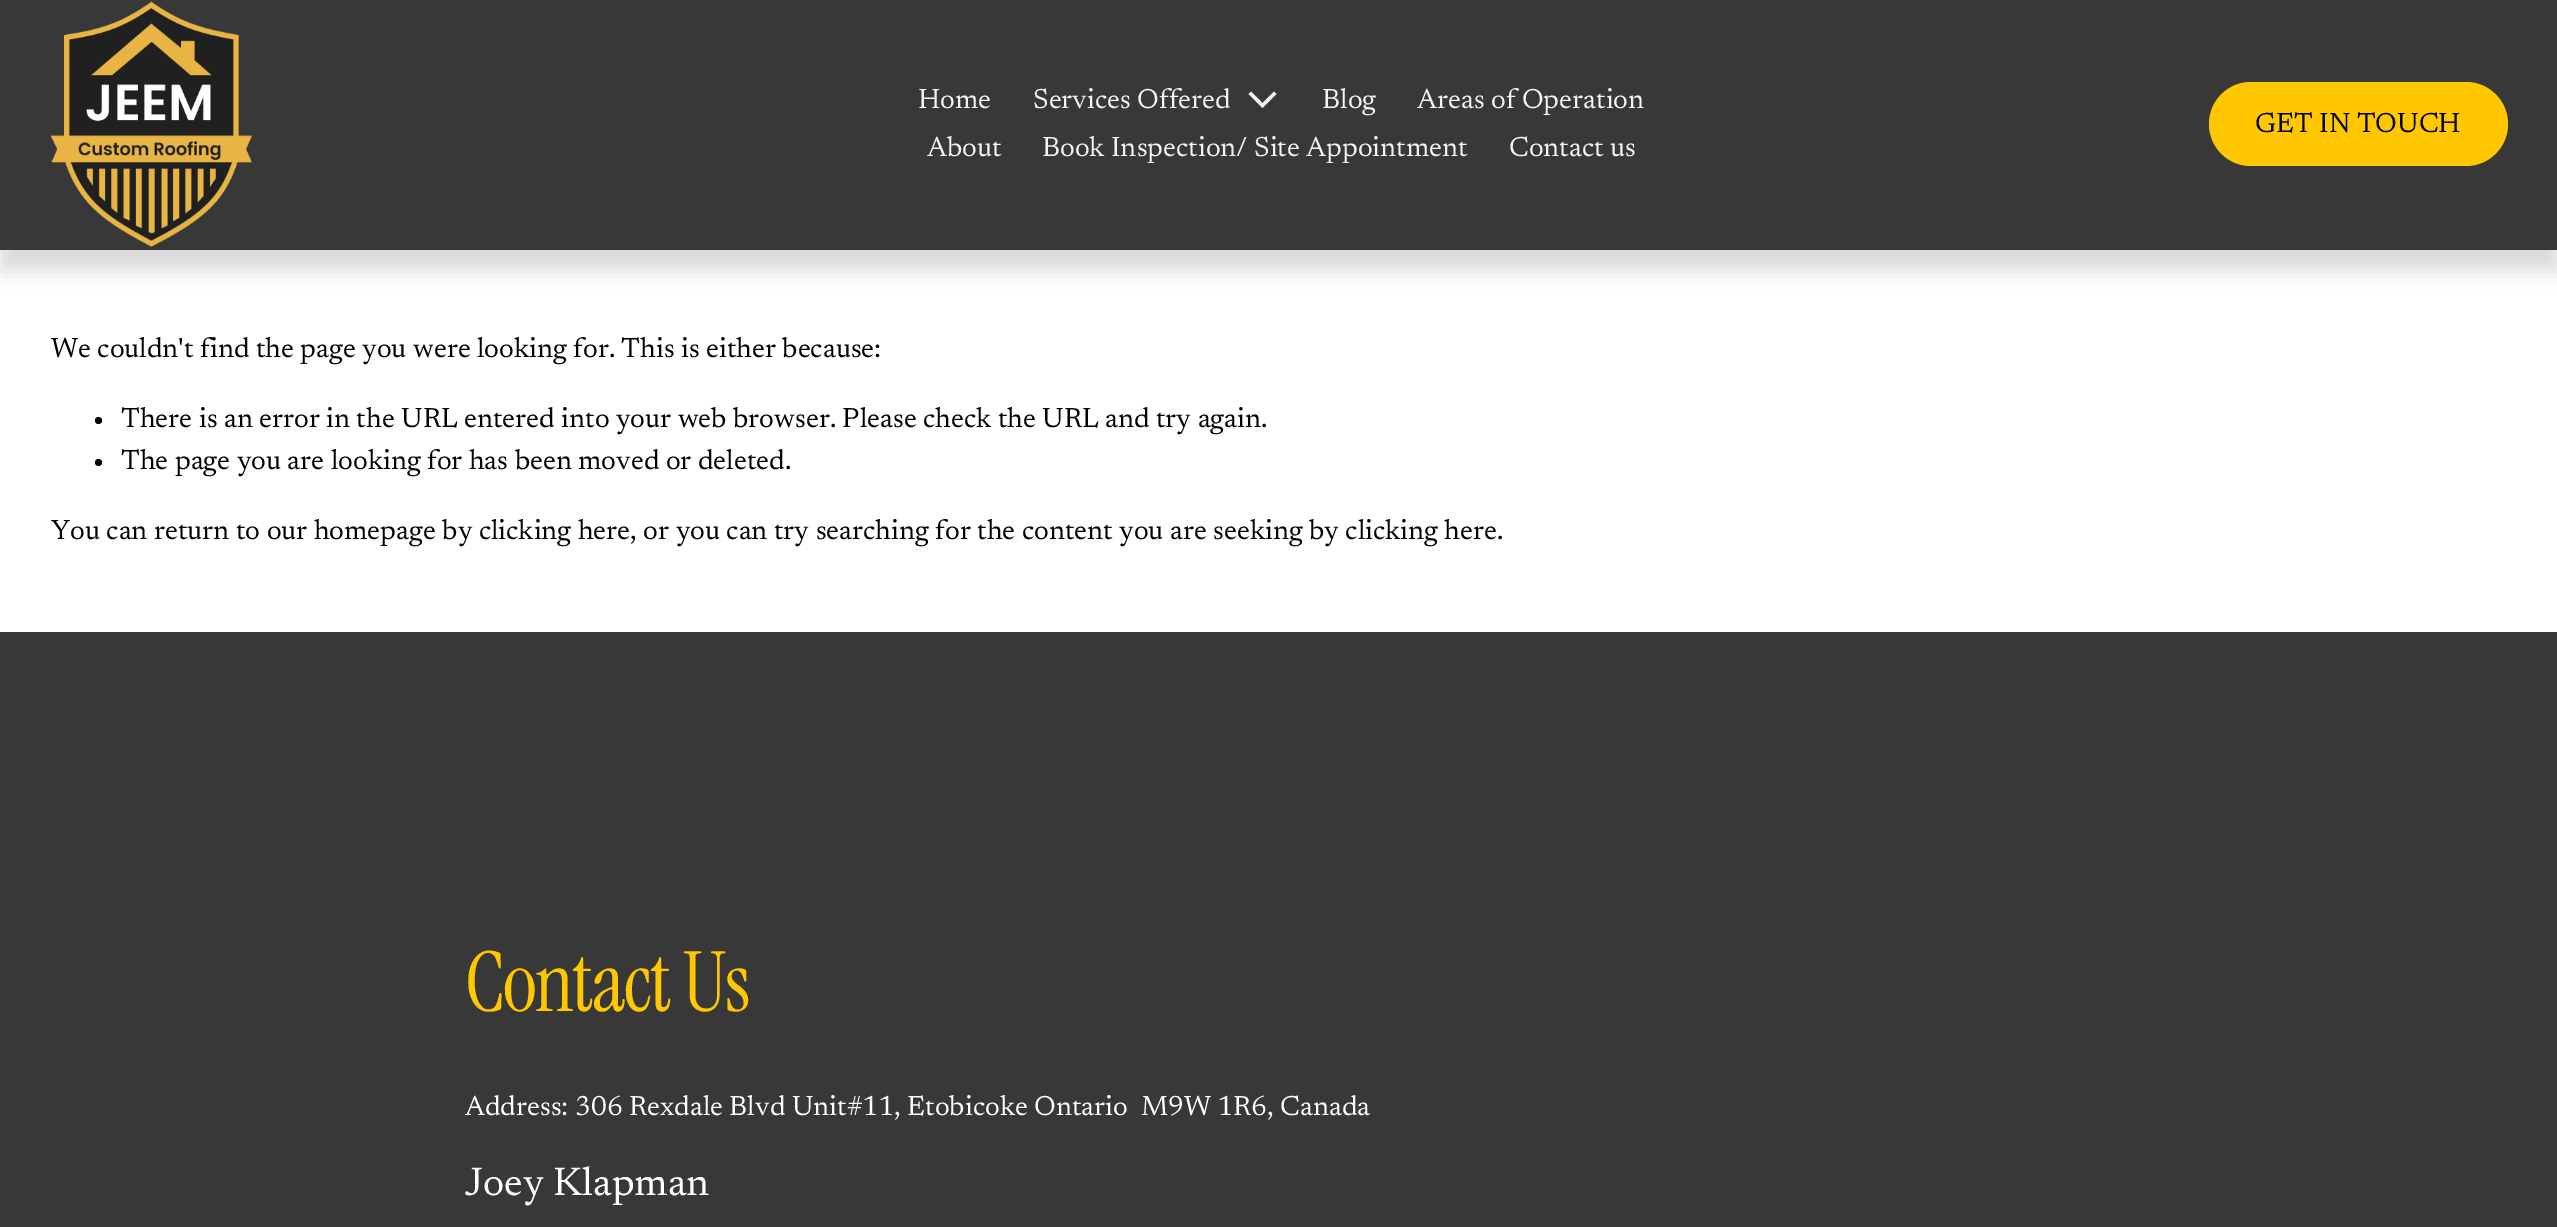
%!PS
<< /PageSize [2557 1227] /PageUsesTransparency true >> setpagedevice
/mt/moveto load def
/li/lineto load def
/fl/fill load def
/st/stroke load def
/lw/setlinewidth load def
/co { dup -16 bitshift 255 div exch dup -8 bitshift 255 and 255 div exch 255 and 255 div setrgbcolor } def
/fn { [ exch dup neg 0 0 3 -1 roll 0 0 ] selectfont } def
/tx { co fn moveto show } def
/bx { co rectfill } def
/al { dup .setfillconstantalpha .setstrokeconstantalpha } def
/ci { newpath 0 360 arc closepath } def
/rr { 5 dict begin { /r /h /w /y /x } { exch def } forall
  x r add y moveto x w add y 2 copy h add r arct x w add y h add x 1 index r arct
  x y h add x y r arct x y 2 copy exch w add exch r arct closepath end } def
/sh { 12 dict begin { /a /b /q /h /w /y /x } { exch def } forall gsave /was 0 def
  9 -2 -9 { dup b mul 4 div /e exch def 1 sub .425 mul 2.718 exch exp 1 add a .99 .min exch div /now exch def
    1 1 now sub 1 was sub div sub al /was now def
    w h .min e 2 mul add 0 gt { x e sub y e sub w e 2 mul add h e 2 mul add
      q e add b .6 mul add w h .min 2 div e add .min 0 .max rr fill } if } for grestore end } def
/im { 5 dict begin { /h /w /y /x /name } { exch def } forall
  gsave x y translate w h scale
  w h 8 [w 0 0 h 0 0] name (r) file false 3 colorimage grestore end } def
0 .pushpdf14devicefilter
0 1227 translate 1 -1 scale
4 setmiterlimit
0 0 2557 1227 16#FFFFFF bx
16#D9D9D9 co
0 21 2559 250 0 10.5 1 sh
0 0 2557 250 16#383838 bx
(media/1.raw) 50 1 202 247 im
16#F4F4F3 co
3.3 lw
2 setlinecap
1274 94 mt 1262.5 105.5 li 1251 94 li st
16#FFC700 co
2209 82 299 84 42 rr fl
16#000000 co
98.5 420.5 3.5 ci fl
98.5 462.5 3.5 ci fl
0 632 2557 595 16#383838 bx
(Home) 918 108 /Newsreader-Regular 28 16#F4F4F3 tx
(Services Offered) 1033 108 /Newsreader-Regular 28 16#F4F4F3 tx
(Blog) 1322 108 /Newsreader-Regular 28 16#F4F4F3 tx
(Areas of Operation) 1417 108 /Newsreader-Regular 28 16#F4F4F3 tx
(About) 927 156 /Newsreader-Regular 28 16#F4F4F3 tx
(Book Inspection/ Site Appointment) 1042 156 /Newsreader-Regular 28 16#F4F4F3 tx
(Contact us) 1509 156 /Newsreader-Regular 28 16#F4F4F3 tx
(GET IN TOUCH) 2255 132 /Newsreader-Regular 28 16#000000 tx
(We couldn't find the page you were looking for. This is either because:) 51 357 /Newsreader-Regular 28 16#000000 tx
(There is an error in the URL entered into your web browser. Please check the URL and try again.) 121 427 /Newsreader-Regular 28 16#000000 tx
(The page you are looking for has been moved or deleted.) 121 469 /Newsreader-Regular 28 16#000000 tx
(You can return to our homepage by clicking here, or you can try searching for the content you are seeking by clicking here.) 51 539 /Newsreader-Regular 28 16#000000 tx
/InstrumentSerif-Regular 83 fn
16#FFC700 co
465 1011 mt -1.75 0 (Contact Us) ashow
(Address: 306 Rexdale Blvd Unit#11, Etobicoke Ontario  M9W 1R6, Canada) 465 1115 /Newsreader-Regular 28 16#FFFFFF tx
(Joey Klapman) 465 1195 /Newsreader-Regular 40.25 16#FFFFFF tx
.poppdf14devicefilter showpage
